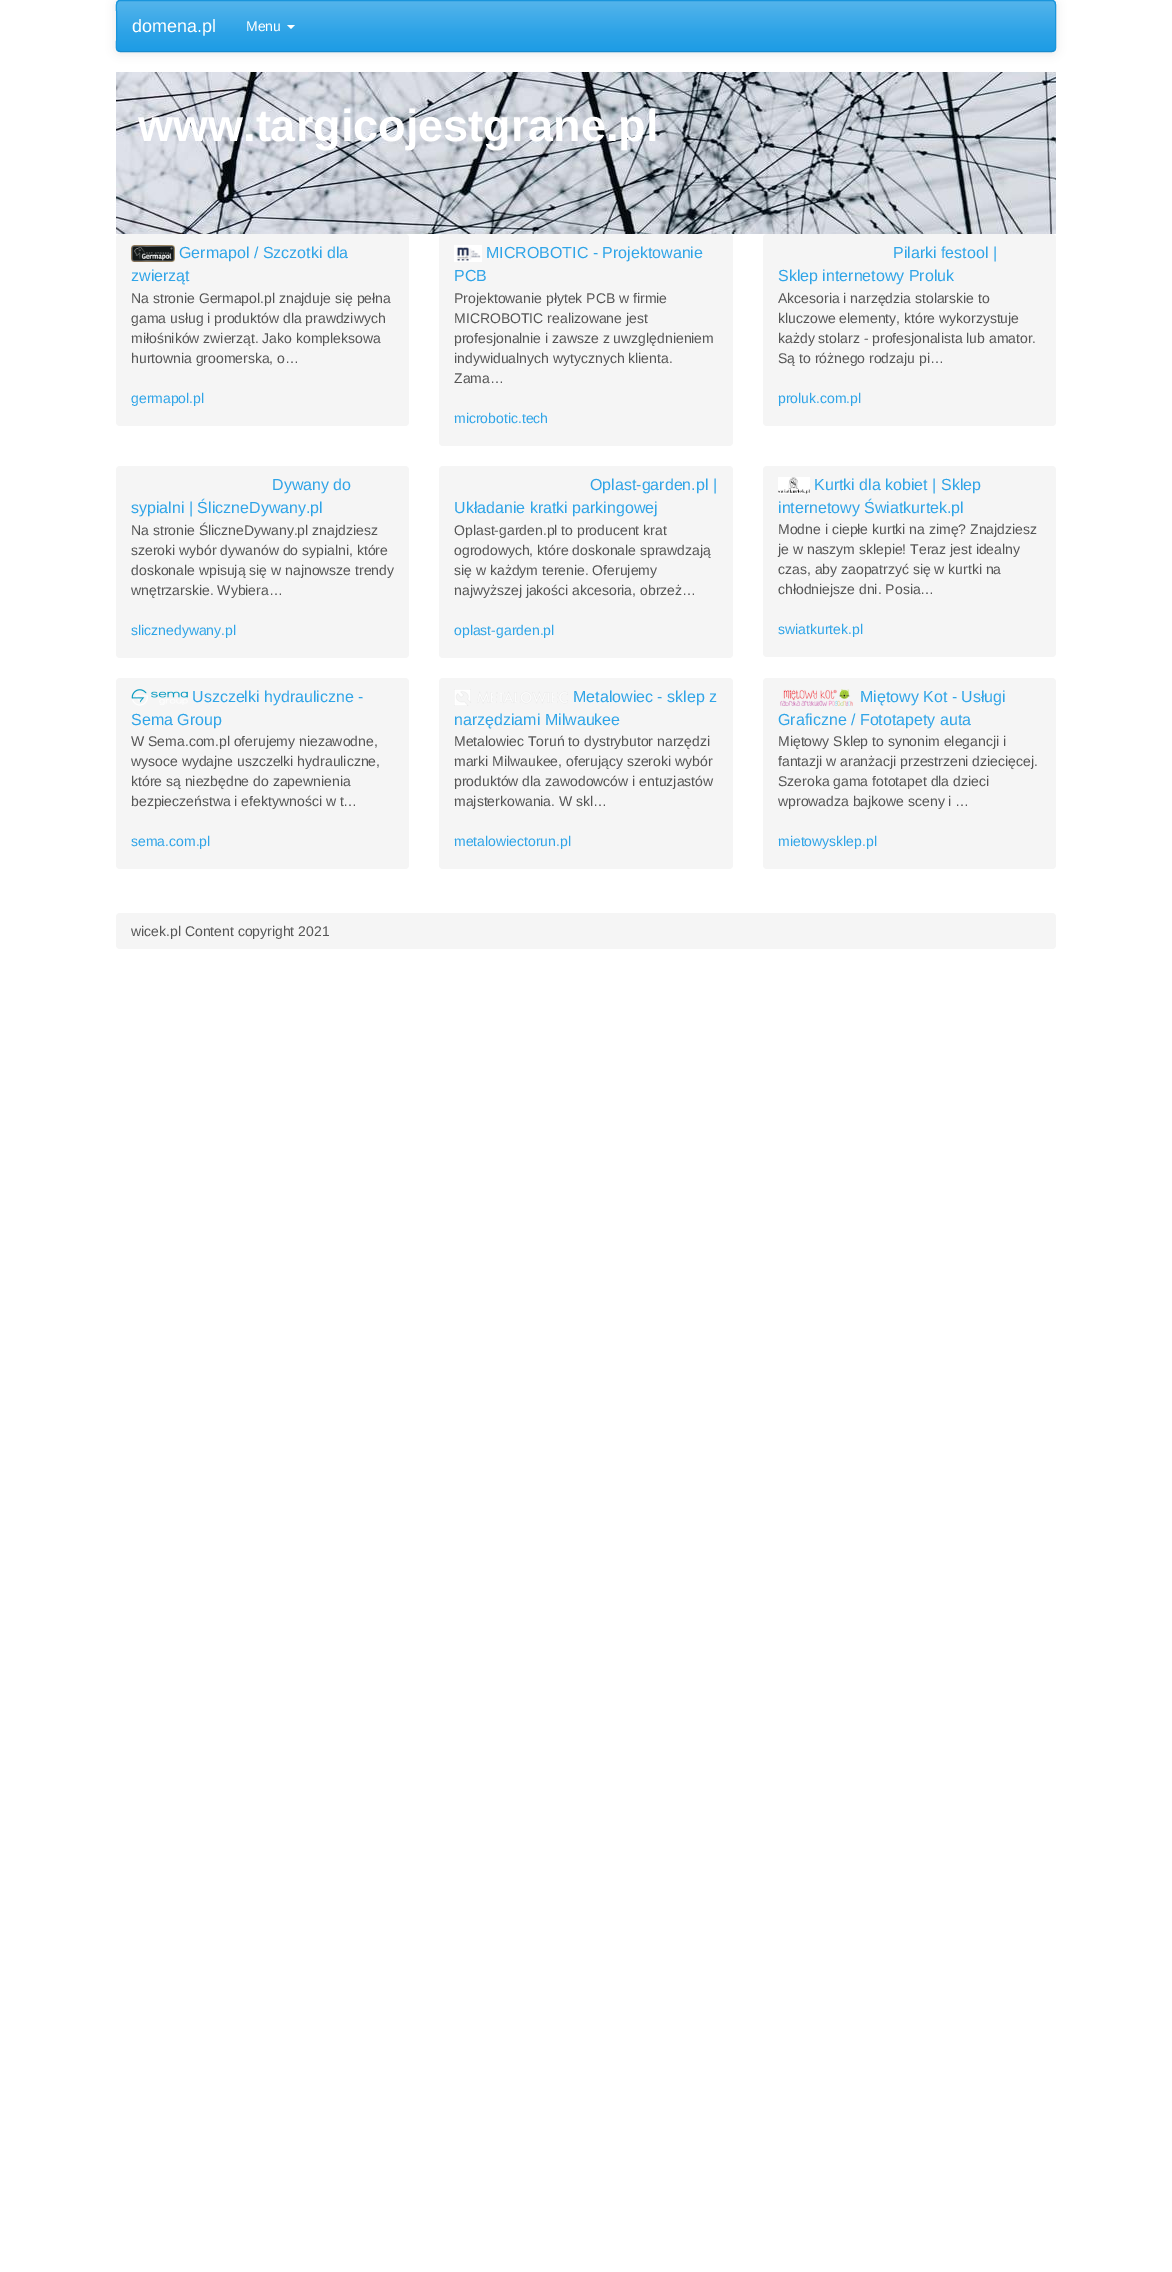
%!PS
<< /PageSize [1172 2272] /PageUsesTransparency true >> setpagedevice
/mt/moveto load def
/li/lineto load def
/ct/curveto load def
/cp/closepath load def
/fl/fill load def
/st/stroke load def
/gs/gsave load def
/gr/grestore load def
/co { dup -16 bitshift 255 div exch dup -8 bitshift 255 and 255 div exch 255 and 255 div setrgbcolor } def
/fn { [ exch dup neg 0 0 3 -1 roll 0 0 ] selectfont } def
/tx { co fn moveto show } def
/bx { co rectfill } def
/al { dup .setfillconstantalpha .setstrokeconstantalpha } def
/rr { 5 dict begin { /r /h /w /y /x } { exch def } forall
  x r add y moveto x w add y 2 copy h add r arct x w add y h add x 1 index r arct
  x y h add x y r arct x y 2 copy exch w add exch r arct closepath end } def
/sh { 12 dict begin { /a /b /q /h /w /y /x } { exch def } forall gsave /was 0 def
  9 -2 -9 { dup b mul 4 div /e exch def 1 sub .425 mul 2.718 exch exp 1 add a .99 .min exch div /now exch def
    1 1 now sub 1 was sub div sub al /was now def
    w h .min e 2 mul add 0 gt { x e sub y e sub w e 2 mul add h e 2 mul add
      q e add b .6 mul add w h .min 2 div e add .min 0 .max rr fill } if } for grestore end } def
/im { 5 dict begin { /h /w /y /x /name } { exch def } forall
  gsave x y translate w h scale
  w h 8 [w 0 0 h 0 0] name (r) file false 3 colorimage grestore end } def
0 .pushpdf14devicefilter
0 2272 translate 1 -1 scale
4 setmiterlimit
0 0 1172 2272 16#FFFFFF bx
16#000000 co
116 1 940 52 4 5 .1 sh
16#2FA4E7 co
116 0 940 52 4 rr fl
gs
116 0 940 52 4 rr clip newpath
gs 117 1 mt 1055 1 li 1055 51 li 117 51 li cp clip newpath
<< /ShadingType 2 /ColorSpace /DeviceRGB /Coords [586 1 586 51] /Extend [true true] /Function << /FunctionType 3 /Domain [0 1] /Functions [<< /FunctionType 2 /Domain [0 1] /C0 [.329 .706 .922] /C1 [.184 .643 .906] /N 1 >> << /FunctionType 2 /Domain [0 1] /C0 [.184 .643 .906] /C1 [.114 .612 .898] /N 1 >>] /Bounds [.6] /Encode [0 1 0 1] >> >> shfill gr
gr
16#178ACC co
1054.5 50.5 mt 1052 51.5 li 120 51.5 li 117.5 50.5 li st
16#1995DC co
117.5 50.5 mt 115.5 48.5 116.5 42 116.5 40.5 ct 116.5 11.5 li 116.5 9 115 1 119.5 .5 ct 1052.5 .5 li 1057 1 1055.5 9 1055.5 11.5 ct 1055.5 40.5 li 1055.5 42 1056.5 48.5 1054.5 50.5 ct st
16#FFFFFF co
287 25 mt 295 25 li 291 29 li cp fl
(media/1.raw) 116 72 940 162 im
16#F5F5F5 co
116 234 293 192 4 rr fl
(media/2.raw) 131 245 44 17 im
439 234 294 212 4 rr fl
(media/3.raw) 454 245 28 17 im
763 234 293 192 4 rr fl
116 466 293 192 4 rr fl
439 466 294 192 4 rr fl
763 466 293 191 4 rr fl
(media/4.raw) 778 477 32 17 im
116 678 293 191 4 rr fl
(media/5.raw) 131 689 57 17 im
439 678 294 191 4 rr fl
(media/6.raw) 454 689 114 17 im
763 678 293 191 4 rr fl
(media/7.raw) 780 689 73 17 im
116 913 940 36 4 rr fl
(domena.pl) 132 32 /LiberationSans-Regular 18 16#FFFFFF tx
(Menu) 246 31 /LiberationSans-Regular 14 16#FFFFFF tx
(www.targicojestgrane.pl) 138 141 /LiberationSans-Bold 45 16#FFFFFF tx
(Germapol / Szczotki dla) 179 258 /LiberationSans-Regular 16 16#2FA4E7 tx
(zwierząt) 131 281 /LiberationSans-Regular 16 16#2FA4E7 tx
(Na stronie Germapol.pl znajduje się pełna) 131 303 /LiberationSans-Regular 14 16#555555 tx
(gama usług i produktów dla prawdziwych) 131 323 /LiberationSans-Regular 14 16#555555 tx
(miłośników zwierząt. Jako kompleksowa) 131 343 /LiberationSans-Regular 14 16#555555 tx
(hurtownia groomerska, o…) 131 363 /LiberationSans-Regular 14 16#555555 tx
(germapol.pl) 131 403 /LiberationSans-Regular 14 16#2FA4E7 tx
(MICROBOTIC - Projektowanie) 486 258 /LiberationSans-Regular 16 16#2FA4E7 tx
(PCB) 454 281 /LiberationSans-Regular 16 16#2FA4E7 tx
(Projektowanie płytek PCB w firmie) 454 303 /LiberationSans-Regular 14 16#555555 tx
(MICROBOTIC realizowane jest) 454 323 /LiberationSans-Regular 14 16#555555 tx
(profesjonalnie i zawsze z uwzględnieniem) 454 343 /LiberationSans-Regular 14 16#555555 tx
(indywidualnych wytycznych klienta.) 454 363 /LiberationSans-Regular 14 16#555555 tx
(Zama…) 454 383 /LiberationSans-Regular 14 16#555555 tx
(microbotic.tech) 454 423 /LiberationSans-Regular 14 16#2FA4E7 tx
(Pilarki festool |) 893 258 /LiberationSans-Regular 16 16#2FA4E7 tx
(Sklep internetowy Proluk) 778 281 /LiberationSans-Regular 16 16#2FA4E7 tx
(Akcesoria i narzędzia stolarskie to) 778 303 /LiberationSans-Regular 14 16#555555 tx
(kluczowe elementy, które wykorzystuje) 778 323 /LiberationSans-Regular 14 16#555555 tx
(każdy stolarz - profesjonalista lub amator.) 778 343 /LiberationSans-Regular 14 16#555555 tx
(Są to różnego rodzaju pi…) 778 363 /LiberationSans-Regular 14 16#555555 tx
(proluk.com.pl) 778 403 /LiberationSans-Regular 14 16#2FA4E7 tx
(Dywany do) 272 490 /LiberationSans-Regular 16 16#2FA4E7 tx
(sypialni | ŚliczneDywany.pl) 131 513 /LiberationSans-Regular 16 16#2FA4E7 tx
(Na stronie ŚliczneDywany.pl znajdziesz) 131 535 /LiberationSans-Regular 14 16#555555 tx
(szeroki wybór dywanów do sypialni, które) 131 555 /LiberationSans-Regular 14 16#555555 tx
(doskonale wpisują się w najnowsze trendy) 131 575 /LiberationSans-Regular 14 16#555555 tx
(wnętrzarskie. Wybiera…) 131 595 /LiberationSans-Regular 14 16#555555 tx
(slicznedywany.pl) 131 635 /LiberationSans-Regular 14 16#2FA4E7 tx
(Oplast-garden.pl |) 590 490 /LiberationSans-Regular 16 16#2FA4E7 tx
(Układanie kratki parkingowej) 454 513 /LiberationSans-Regular 16 16#2FA4E7 tx
(Oplast-garden.pl to producent krat) 454 535 /LiberationSans-Regular 14 16#555555 tx
(ogrodowych, które doskonale sprawdzają) 454 555 /LiberationSans-Regular 14 16#555555 tx
(się w każdym terenie. Oferujemy) 454 575 /LiberationSans-Regular 14 16#555555 tx
(najwyższej jakości akcesoria, obrzeż…) 454 595 /LiberationSans-Regular 14 16#555555 tx
(oplast-garden.pl) 454 635 /LiberationSans-Regular 14 16#2FA4E7 tx
(Kurtki dla kobiet | Sklep) 814 490 /LiberationSans-Regular 16 16#2FA4E7 tx
(internetowy Światkurtek.pl) 778 513 /LiberationSans-Regular 16 16#2FA4E7 tx
(Modne i ciepłe kurtki na zimę? Znajdziesz) 778 534 /LiberationSans-Regular 14 16#555555 tx
(je w naszym sklepie! Teraz jest idealny) 778 554 /LiberationSans-Regular 14 16#555555 tx
(czas, aby zaopatrzyć się w kurtki na) 778 574 /LiberationSans-Regular 14 16#555555 tx
(chłodniejsze dni. Posia…) 778 594 /LiberationSans-Regular 14 16#555555 tx
(swiatkurtek.pl) 778 634 /LiberationSans-Regular 14 16#2FA4E7 tx
(Uszczelki hydrauliczne -) 192 702 /LiberationSans-Regular 16 16#2FA4E7 tx
(Sema Group) 131 725 /LiberationSans-Regular 16 16#2FA4E7 tx
(W Sema.com.pl oferujemy niezawodne,) 131 746 /LiberationSans-Regular 14 16#555555 tx
(wysoce wydajne uszczelki hydrauliczne,) 131 766 /LiberationSans-Regular 14 16#555555 tx
(które są niezbędne do zapewnienia) 131 786 /LiberationSans-Regular 14 16#555555 tx
(bezpieczeństwa i efektywności w t…) 131 806 /LiberationSans-Regular 14 16#555555 tx
(sema.com.pl) 131 846 /LiberationSans-Regular 14 16#2FA4E7 tx
(Metalowiec - sklep z) 573 702 /LiberationSans-Regular 16 16#2FA4E7 tx
(narzędziami Milwaukee) 454 725 /LiberationSans-Regular 16 16#2FA4E7 tx
(Metalowiec Toruń to dystrybutor narzędzi) 454 746 /LiberationSans-Regular 14 16#555555 tx
(marki Milwaukee, oferujący szeroki wybór) 454 766 /LiberationSans-Regular 14 16#555555 tx
(produktów dla zawodowców i entuzjastów) 454 786 /LiberationSans-Regular 14 16#555555 tx
(majsterkowania. W skl…) 454 806 /LiberationSans-Regular 14 16#555555 tx
(metalowiectorun.pl) 454 846 /LiberationSans-Regular 14 16#2FA4E7 tx
(Miętowy Kot - Usługi) 860 702 /LiberationSans-Regular 16 16#2FA4E7 tx
(Graficzne / Fototapety auta) 778 725 /LiberationSans-Regular 16 16#2FA4E7 tx
(Miętowy Sklep to synonim elegancji i) 778 746 /LiberationSans-Regular 14 16#555555 tx
(fantazji w aranżacji przestrzeni dziecięcej.) 778 766 /LiberationSans-Regular 14 16#555555 tx
(Szeroka gama fototapet dla dzieci) 778 786 /LiberationSans-Regular 14 16#555555 tx
(wprowadza bajkowe sceny i …) 778 806 /LiberationSans-Regular 14 16#555555 tx
(mietowysklep.pl) 778 846 /LiberationSans-Regular 14 16#2FA4E7 tx
(wicek.pl Content copyright 2021) 131 936 /LiberationSans-Regular 14 16#555555 tx
.poppdf14devicefilter showpage
